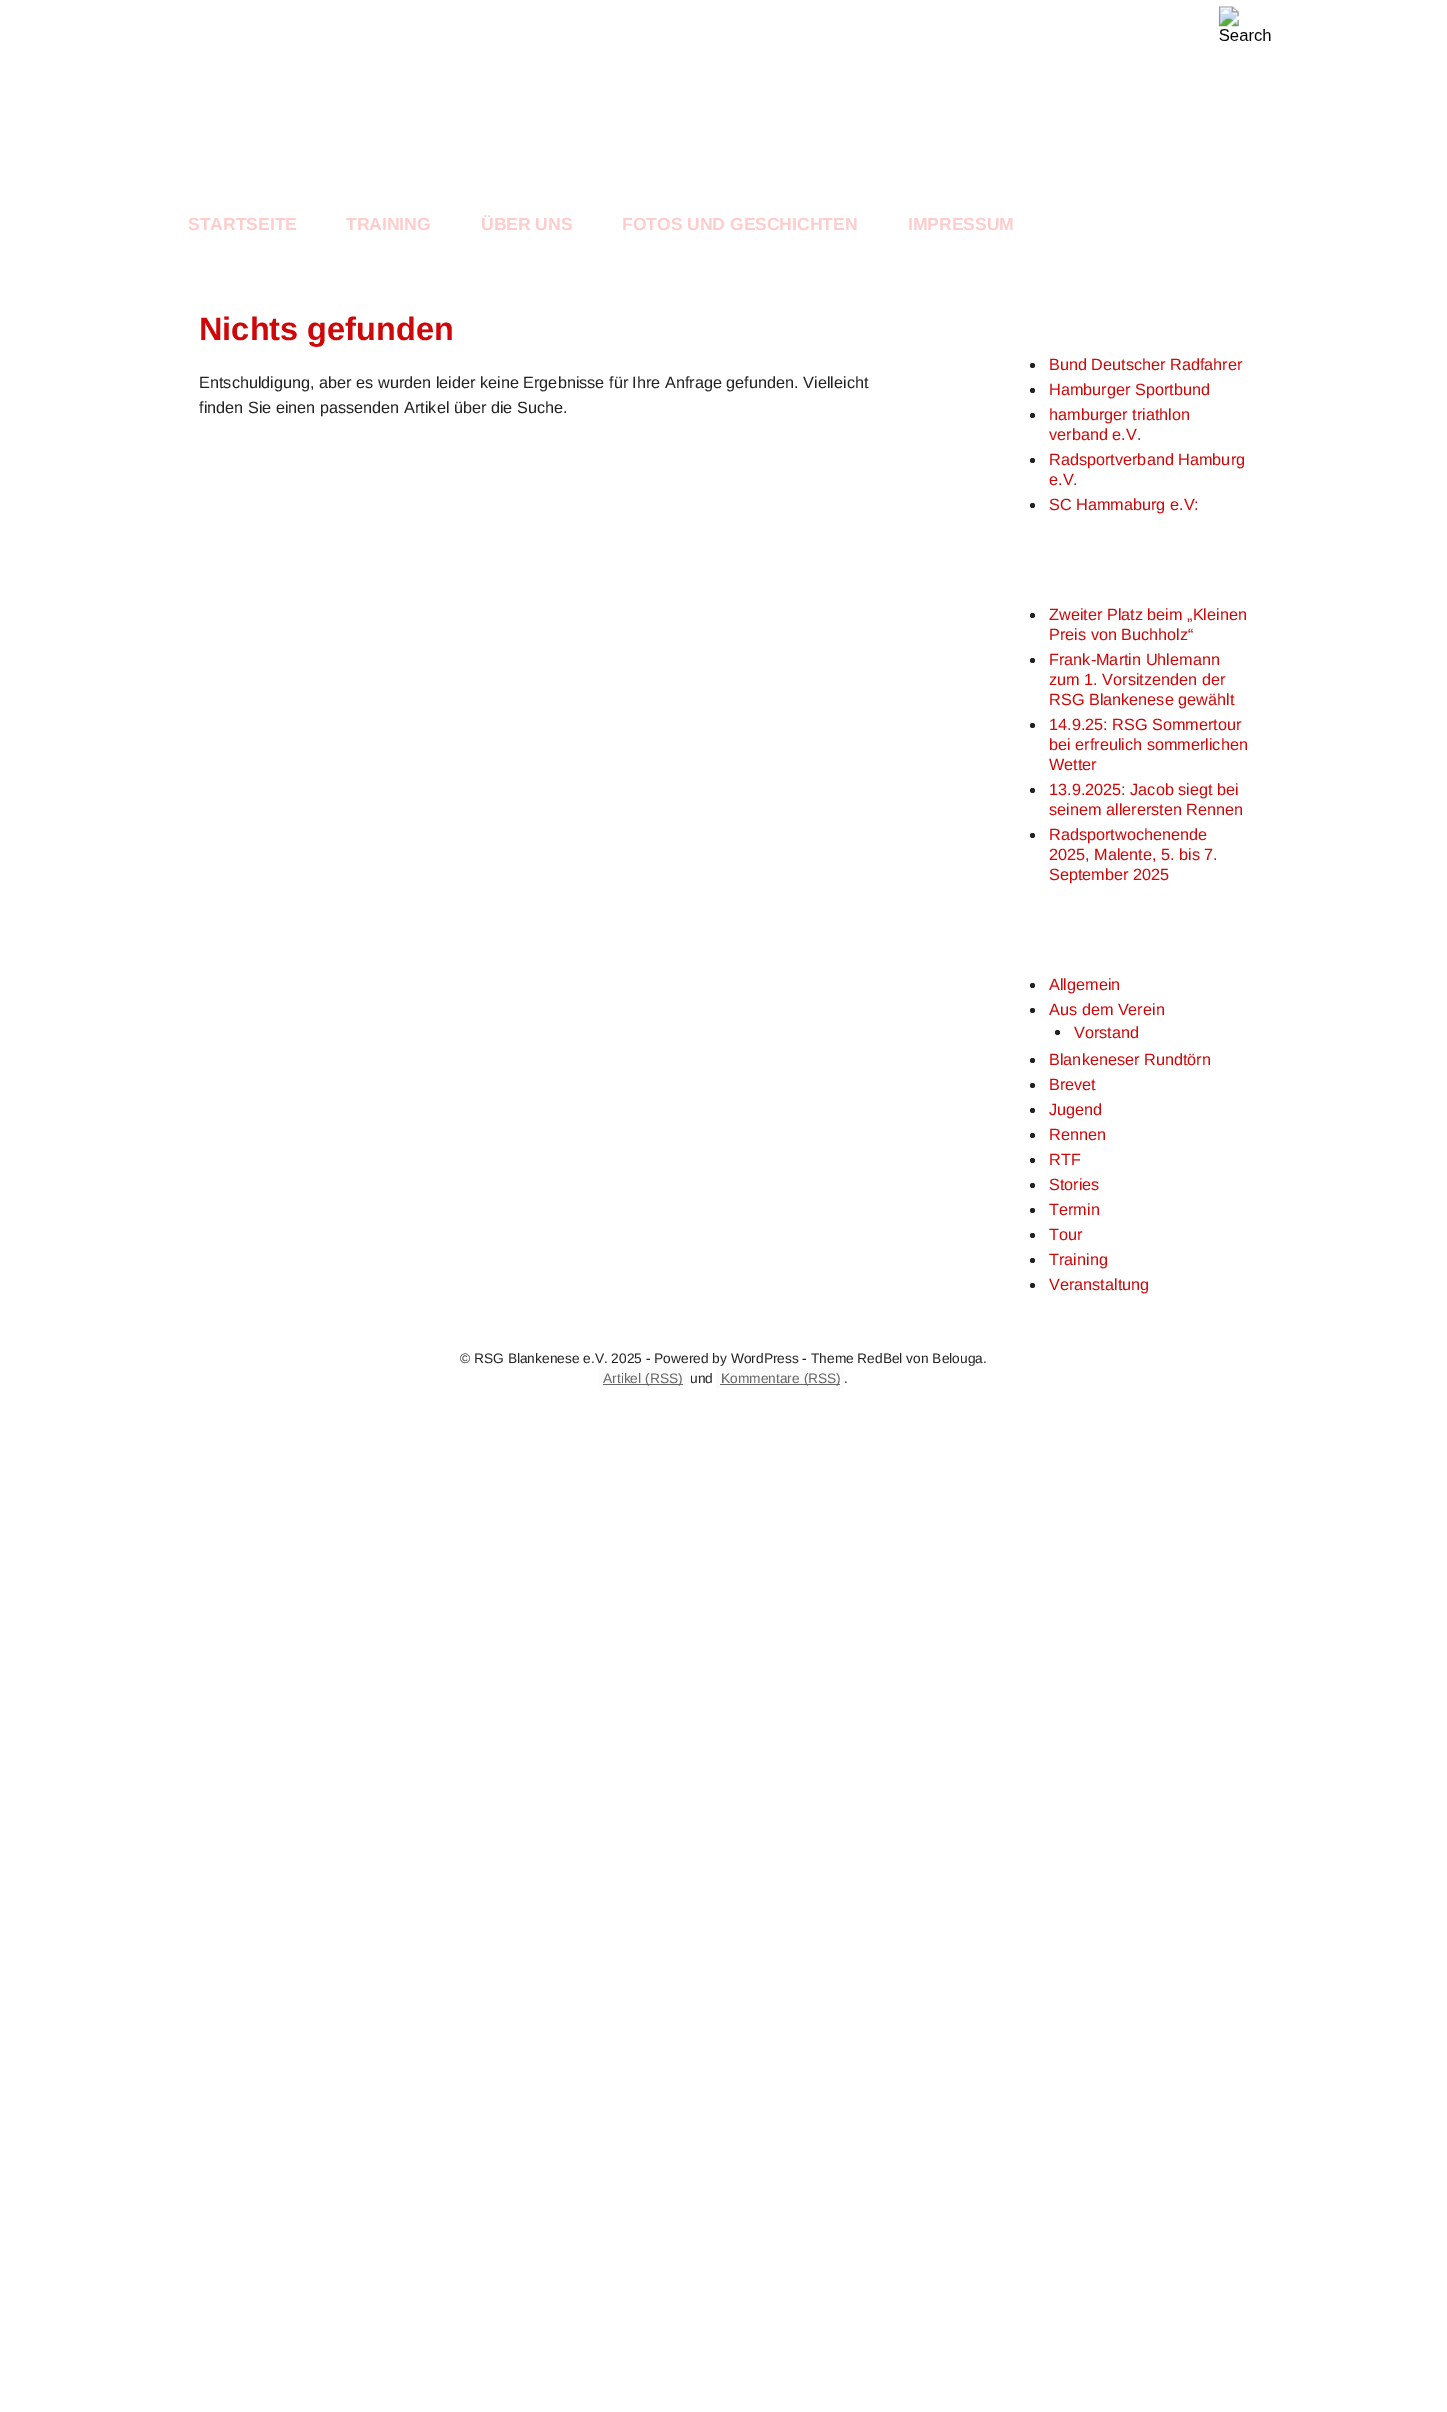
%!PS
<< /PageSize [1447 2412] >> setpagedevice
/fl/fill load def
/co { dup -16 bitshift 255 div exch dup -8 bitshift 255 and 255 div exch 255 and 255 div setrgbcolor } def
/fn { [ exch dup neg 0 0 3 -1 roll 0 0 ] selectfont } def
/tx { co fn moveto show } def
/bx { co rectfill } def
/ci { newpath 0 360 arc closepath } def
/im { 5 dict begin { /h /w /y /x /name } { exch def } forall
  gsave x y translate w h scale
  w h 8 [w 0 0 h 0 0] name (r) file false 3 colorimage grestore end } def
0 2412 translate 1 -1 scale
4 setmiterlimit
0 0 1447 2412 16#FFFFFF bx
(media/1.raw) 1218 6 53 35 im
16#222222 co
1032.5 365.5 2.5 ci fl
1032.5 390.5 2.5 ci fl
1032.5 415.5 2.5 ci fl
1032.5 460.5 2.5 ci fl
1032.5 505.5 2.5 ci fl
1032.5 615.5 2.5 ci fl
1032.5 660.5 2.5 ci fl
1032.5 725.5 2.5 ci fl
1032.5 790.5 2.5 ci fl
1032.5 835.5 2.5 ci fl
1032.5 985.5 2.5 ci fl
1032.5 1010.5 2.5 ci fl
1057.5 1032.5 2.5 ci fl
1032.5 1060.5 2.5 ci fl
1032.5 1085.5 2.5 ci fl
1032.5 1110.5 2.5 ci fl
1032.5 1135.5 2.5 ci fl
1032.5 1160.5 2.5 ci fl
1032.5 1185.5 2.5 ci fl
1032.5 1210.5 2.5 ci fl
1032.5 1235.5 2.5 ci fl
1032.5 1260.5 2.5 ci fl
1032.5 1285.5 2.5 ci fl
599 1368 87 20 16#FBFBFB bx
603 1384 80 1 16#666666 bx
716 1368 128 20 16#FBFBFB bx
720 1384 120 1 16#666666 bx
(STARTSEITE) 188 230 /LiberationSans-Bold 17.5 16#FFCCCC tx
(TRAINING) 346 230 /LiberationSans-Bold 17.5 16#FFCCCC tx
(ÜBER UNS) 481 230 /LiberationSans-Bold 17.5 16#FFCCCC tx
(FOTOS UND GESCHICHTEN) 622 230 /LiberationSans-Bold 17.5 16#FFCCCC tx
(IMPRESSUM) 908 230 /LiberationSans-Bold 17.5 16#FFCCCC tx
(Nichts gefunden) 199 340 /LiberationSans-Bold 32.5 16#CE0709 tx
(Entschuldigung, aber es wurden leider keine Ergebnisse für Ihre Anfrage gefunden. Vielleicht) 199 388 /LiberationSans-Regular 16.25 16#222222 tx
(finden Sie einen passenden Artikel über die Suche.) 199 413 /LiberationSans-Regular 16.25 16#222222 tx
(Bund Deutscher Radfahrer) 1049 370 /LiberationSans-Regular 16.25 16#CE0709 tx
(Hamburger Sportbund) 1049 395 /LiberationSans-Regular 16.25 16#CE0709 tx
(hamburger triathlon) 1049 420 /LiberationSans-Regular 16.25 16#CE0709 tx
(verband e.V.) 1049 440 /LiberationSans-Regular 16.25 16#CE0709 tx
(Radsportverband Hamburg) 1049 465 /LiberationSans-Regular 16.25 16#CE0709 tx
(e.V.) 1049 485 /LiberationSans-Regular 16.25 16#CE0709 tx
(SC Hammaburg e.V:) 1049 510 /LiberationSans-Regular 16.25 16#CE0709 tx
(Zweiter Platz beim „Kleinen) 1049 620 /LiberationSans-Regular 16.25 16#CE0709 tx
(Preis von Buchholz“) 1049 640 /LiberationSans-Regular 16.25 16#CE0709 tx
(Frank-Martin Uhlemann) 1049 665 /LiberationSans-Regular 16.25 16#CE0709 tx
(zum 1. Vorsitzenden der) 1049 685 /LiberationSans-Regular 16.25 16#CE0709 tx
(RSG Blankenese gewählt) 1049 705 /LiberationSans-Regular 16.25 16#CE0709 tx
(14.9.25: RSG Sommertour) 1049 730 /LiberationSans-Regular 16.25 16#CE0709 tx
(bei erfreulich sommerlichen) 1049 750 /LiberationSans-Regular 16.25 16#CE0709 tx
(Wetter) 1049 770 /LiberationSans-Regular 16.25 16#CE0709 tx
(13.9.2025: Jacob siegt bei) 1049 795 /LiberationSans-Regular 16.25 16#CE0709 tx
(seinem allerersten Rennen) 1049 815 /LiberationSans-Regular 16.25 16#CE0709 tx
(Radsportwochenende) 1049 840 /LiberationSans-Regular 16.25 16#CE0709 tx
(2025, Malente, 5. bis 7.) 1049 860 /LiberationSans-Regular 16.25 16#CE0709 tx
(September 2025) 1049 880 /LiberationSans-Regular 16.25 16#CE0709 tx
(Allgemein) 1049 990 /LiberationSans-Regular 16.25 16#CE0709 tx
(Aus dem Verein) 1049 1015 /LiberationSans-Regular 16.25 16#CE0709 tx
(Vorstand) 1074 1038 /LiberationSans-Regular 16.25 16#CE0709 tx
(Blankeneser Rundtörn) 1049 1065 /LiberationSans-Regular 16.25 16#CE0709 tx
(Brevet) 1049 1090 /LiberationSans-Regular 16.25 16#CE0709 tx
(Jugend) 1049 1115 /LiberationSans-Regular 16.25 16#CE0709 tx
(Rennen) 1049 1140 /LiberationSans-Regular 16.25 16#CE0709 tx
(RTF) 1049 1165 /LiberationSans-Regular 16.25 16#CE0709 tx
(Stories) 1049 1190 /LiberationSans-Regular 16.25 16#CE0709 tx
(Termin) 1049 1215 /LiberationSans-Regular 16.25 16#CE0709 tx
(Tour) 1049 1240 /LiberationSans-Regular 16.25 16#CE0709 tx
(Training) 1049 1265 /LiberationSans-Regular 16.25 16#CE0709 tx
(Veranstaltung) 1049 1290 /LiberationSans-Regular 16.25 16#CE0709 tx
(© RSG Blankenese e.V. 2025 - Powered by WordPress - Theme RedBel von Belouga.) 460 1363 /LiberationSans-Regular 13.75 16#222222 tx
(Artikel \(RSS\)) 603 1383 /LiberationSans-Regular 13.75 16#666666 tx
(und) 690 1383 /LiberationSans-Regular 13.75 16#222222 tx
(Kommentare \(RSS\)) 721 1383 /LiberationSans-Regular 13.75 16#666666 tx
(.) 844 1383 /LiberationSans-Regular 13.75 16#222222 tx
showpage
